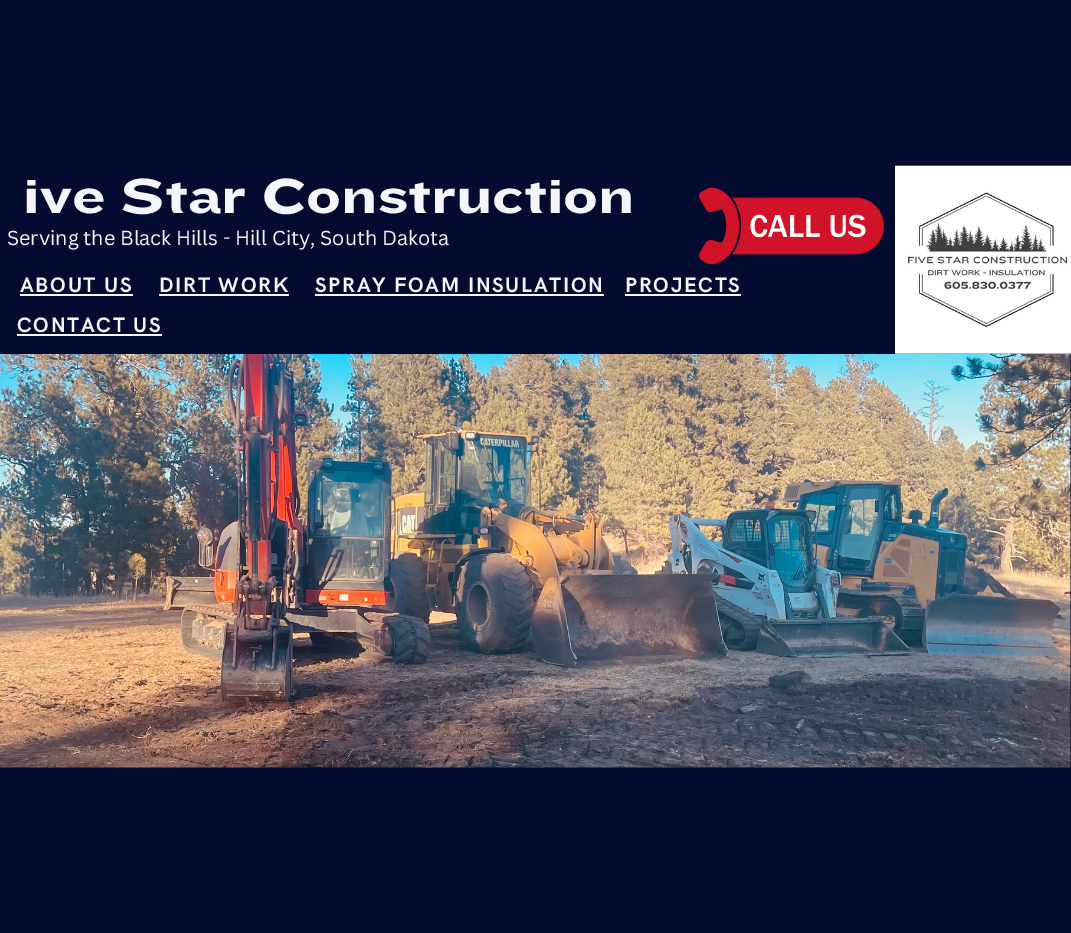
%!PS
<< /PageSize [1071 933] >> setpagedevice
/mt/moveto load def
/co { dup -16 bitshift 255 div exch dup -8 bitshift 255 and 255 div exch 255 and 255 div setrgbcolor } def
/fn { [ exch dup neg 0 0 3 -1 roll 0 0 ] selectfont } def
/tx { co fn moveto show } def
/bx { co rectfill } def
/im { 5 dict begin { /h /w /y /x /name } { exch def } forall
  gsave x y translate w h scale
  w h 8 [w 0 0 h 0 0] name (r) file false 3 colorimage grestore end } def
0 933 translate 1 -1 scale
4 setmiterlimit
0 0 1071 933 16#050A30 bx
(media/1.raw) 699 187 185 77 im
(media/2.raw) 895 165 176 189 im
20 294 113 2 16#F4F6FC bx
159 294 130 2 16#F4F6FC bx
315 294 289 2 16#F4F6FC bx
625 294 116 2 16#F4F6FC bx
17 334 145 2 16#F4F6FC bx
(media/3.raw) 0 354 1071 414 im
(ive Star Construction) 23 213 /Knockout-Regular 50.25 16#F4F6FC tx
(Serving the Black Hills - Hill City, South Dakota) 7 245 /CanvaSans-Regular 19.8 16#F4F6FC tx
/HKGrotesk-Bold 21 fn
20 292 mt 1.7 0 (ABOUT US) ashow
159 292 mt 1.7 0 (DIRT WORK) ashow
/HKGrotesk-Bold 20.9 fn
315 292 mt 1.7 0 (SPRAY FOAM INSULATION) ashow
625 292 mt 1.7 0 (PROJECTS) ashow
17 332 mt 1.7 0 (CONTACT US) ashow
showpage
